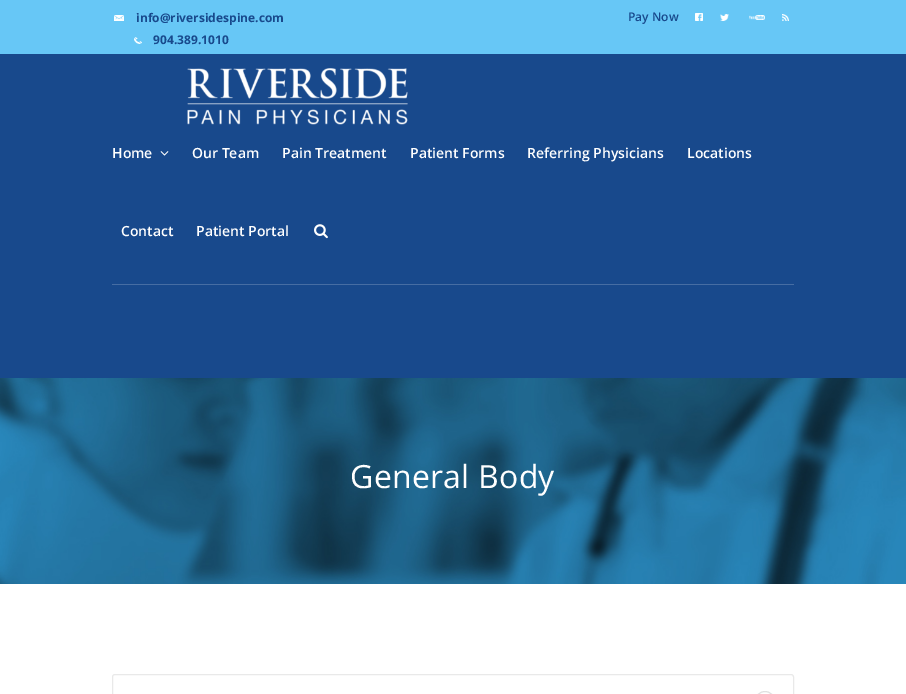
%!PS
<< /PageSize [906 694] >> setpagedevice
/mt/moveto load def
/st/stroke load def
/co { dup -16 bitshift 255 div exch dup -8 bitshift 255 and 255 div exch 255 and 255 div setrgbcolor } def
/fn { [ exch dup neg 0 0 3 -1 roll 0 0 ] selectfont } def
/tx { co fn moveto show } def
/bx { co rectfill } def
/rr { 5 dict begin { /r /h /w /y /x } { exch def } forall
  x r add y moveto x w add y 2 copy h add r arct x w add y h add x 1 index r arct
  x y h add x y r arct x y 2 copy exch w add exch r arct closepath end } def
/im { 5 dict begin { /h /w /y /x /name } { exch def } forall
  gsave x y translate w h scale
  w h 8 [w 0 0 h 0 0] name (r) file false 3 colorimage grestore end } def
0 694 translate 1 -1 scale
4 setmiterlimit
0 0 906 694 16#FFFFFF bx
0 54 906 324 16#18498C bx
0 0 906 54 16#67C7F6 bx
(media/1.raw) 114 15 10 6 im
(media/2.raw) 134 37 8 7 im
(media/3.raw) 695 13 8 8 im
(media/4.raw) 720 14 9 7 im
(media/5.raw) 749 15 16 5 im
(media/6.raw) 782 14 7 7 im
(media/7.raw) 187 68 221 57 im
112 284 682 1 16#466DA3 bx
(media/8.raw) 160 151 9 5 im
(media/9.raw) 314 224 14 15 im
(media/10.raw) 0 378 906 206 im
16#E9E9E9 co
112.5 674.5 681 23 2.5 rr st
16#E0E0E0 co
755.5 691.5 19 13 9.5 rr st
(info@riversidespine.com) 136 22 /OpenSans-Bold 12 16#18498C tx
(904.389.1010) 153 44 /OpenSans-Bold 12 16#18498C tx
(Pay Now) 628 21 /OpenSans-SemiBold 12 16#18498C tx
(Home) 112 158 /OpenSans-SemiBold 14 16#FFFFFF tx
(Our Team) 192 158 /OpenSans-SemiBold 14 16#FFFFFF tx
(Pain Treatment) 282 158 /OpenSans-SemiBold 14 16#FFFFFF tx
(Patient Forms) 410 158 /OpenSans-SemiBold 14 16#FFFFFF tx
(Referring Physicians) 527 158 /OpenSans-SemiBold 14 16#FFFFFF tx
(Locations) 687 158 /OpenSans-SemiBold 14 16#FFFFFF tx
(Contact) 121 236 /OpenSans-SemiBold 14 16#FFFFFF tx
(Patient Portal) 196 236 /OpenSans-SemiBold 14 16#FFFFFF tx
/OpenSans-Regular 32 fn
350 488 mt .25 0 (General Body) ashow
showpage
